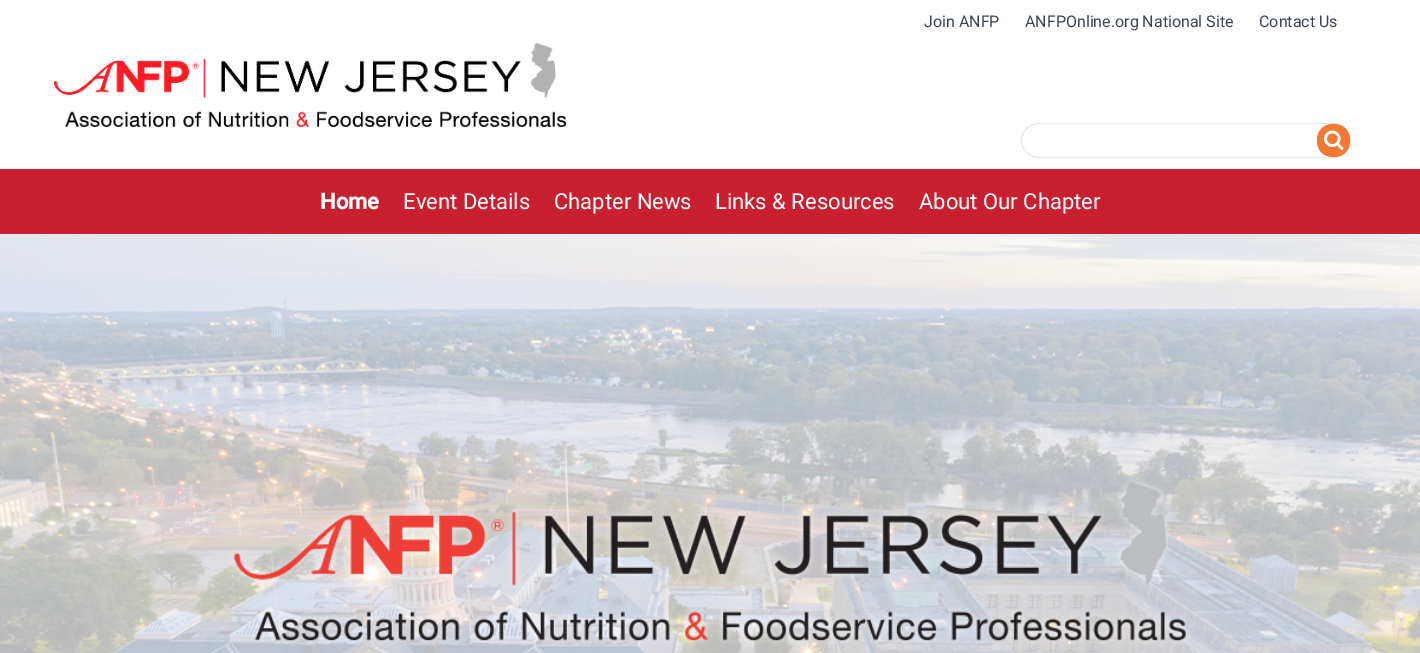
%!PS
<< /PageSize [1420 653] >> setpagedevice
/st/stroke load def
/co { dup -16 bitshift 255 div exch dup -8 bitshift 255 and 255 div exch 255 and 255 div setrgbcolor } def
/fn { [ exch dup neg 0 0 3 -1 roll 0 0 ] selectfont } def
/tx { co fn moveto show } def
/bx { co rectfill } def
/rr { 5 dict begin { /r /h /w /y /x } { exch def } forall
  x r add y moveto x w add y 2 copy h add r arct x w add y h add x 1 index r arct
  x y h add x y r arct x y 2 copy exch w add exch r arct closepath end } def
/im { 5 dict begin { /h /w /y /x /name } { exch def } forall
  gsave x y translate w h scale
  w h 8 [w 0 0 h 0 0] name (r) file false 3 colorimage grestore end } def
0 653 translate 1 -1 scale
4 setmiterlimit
0 0 1420 653 16#FFFFFF bx
16#E8E8E8 co
1021.5 123.5 329 34 17 rr st
(media/1.raw) 1317 124 33 33 im
(media/2.raw) 54 43 512 84 im
0 169 1420 65 16#C8202F bx
(media/3.raw) 0 234 1420 419 im
(Join ANFP) 924 27 /Roboto-Regular 16 16#3E4652 tx
(ANFPOnline.org National Site) 1025 27 /Roboto-Regular 16 16#3E4652 tx
(Contact Us) 1259 27 /Roboto-Regular 16 16#3E4652 tx
(Home) 320 209 /Roboto-Bold 22 16#FFFFFF tx
(Event Details) 403 209 /Roboto-Regular 22 16#FFFFFF tx
(Chapter News) 554 209 /Roboto-Regular 22 16#FFFFFF tx
(Links & Resources) 715 209 /Roboto-Regular 22 16#FFFFFF tx
(About Our Chapter) 919 209 /Roboto-Regular 22 16#FFFFFF tx
showpage
